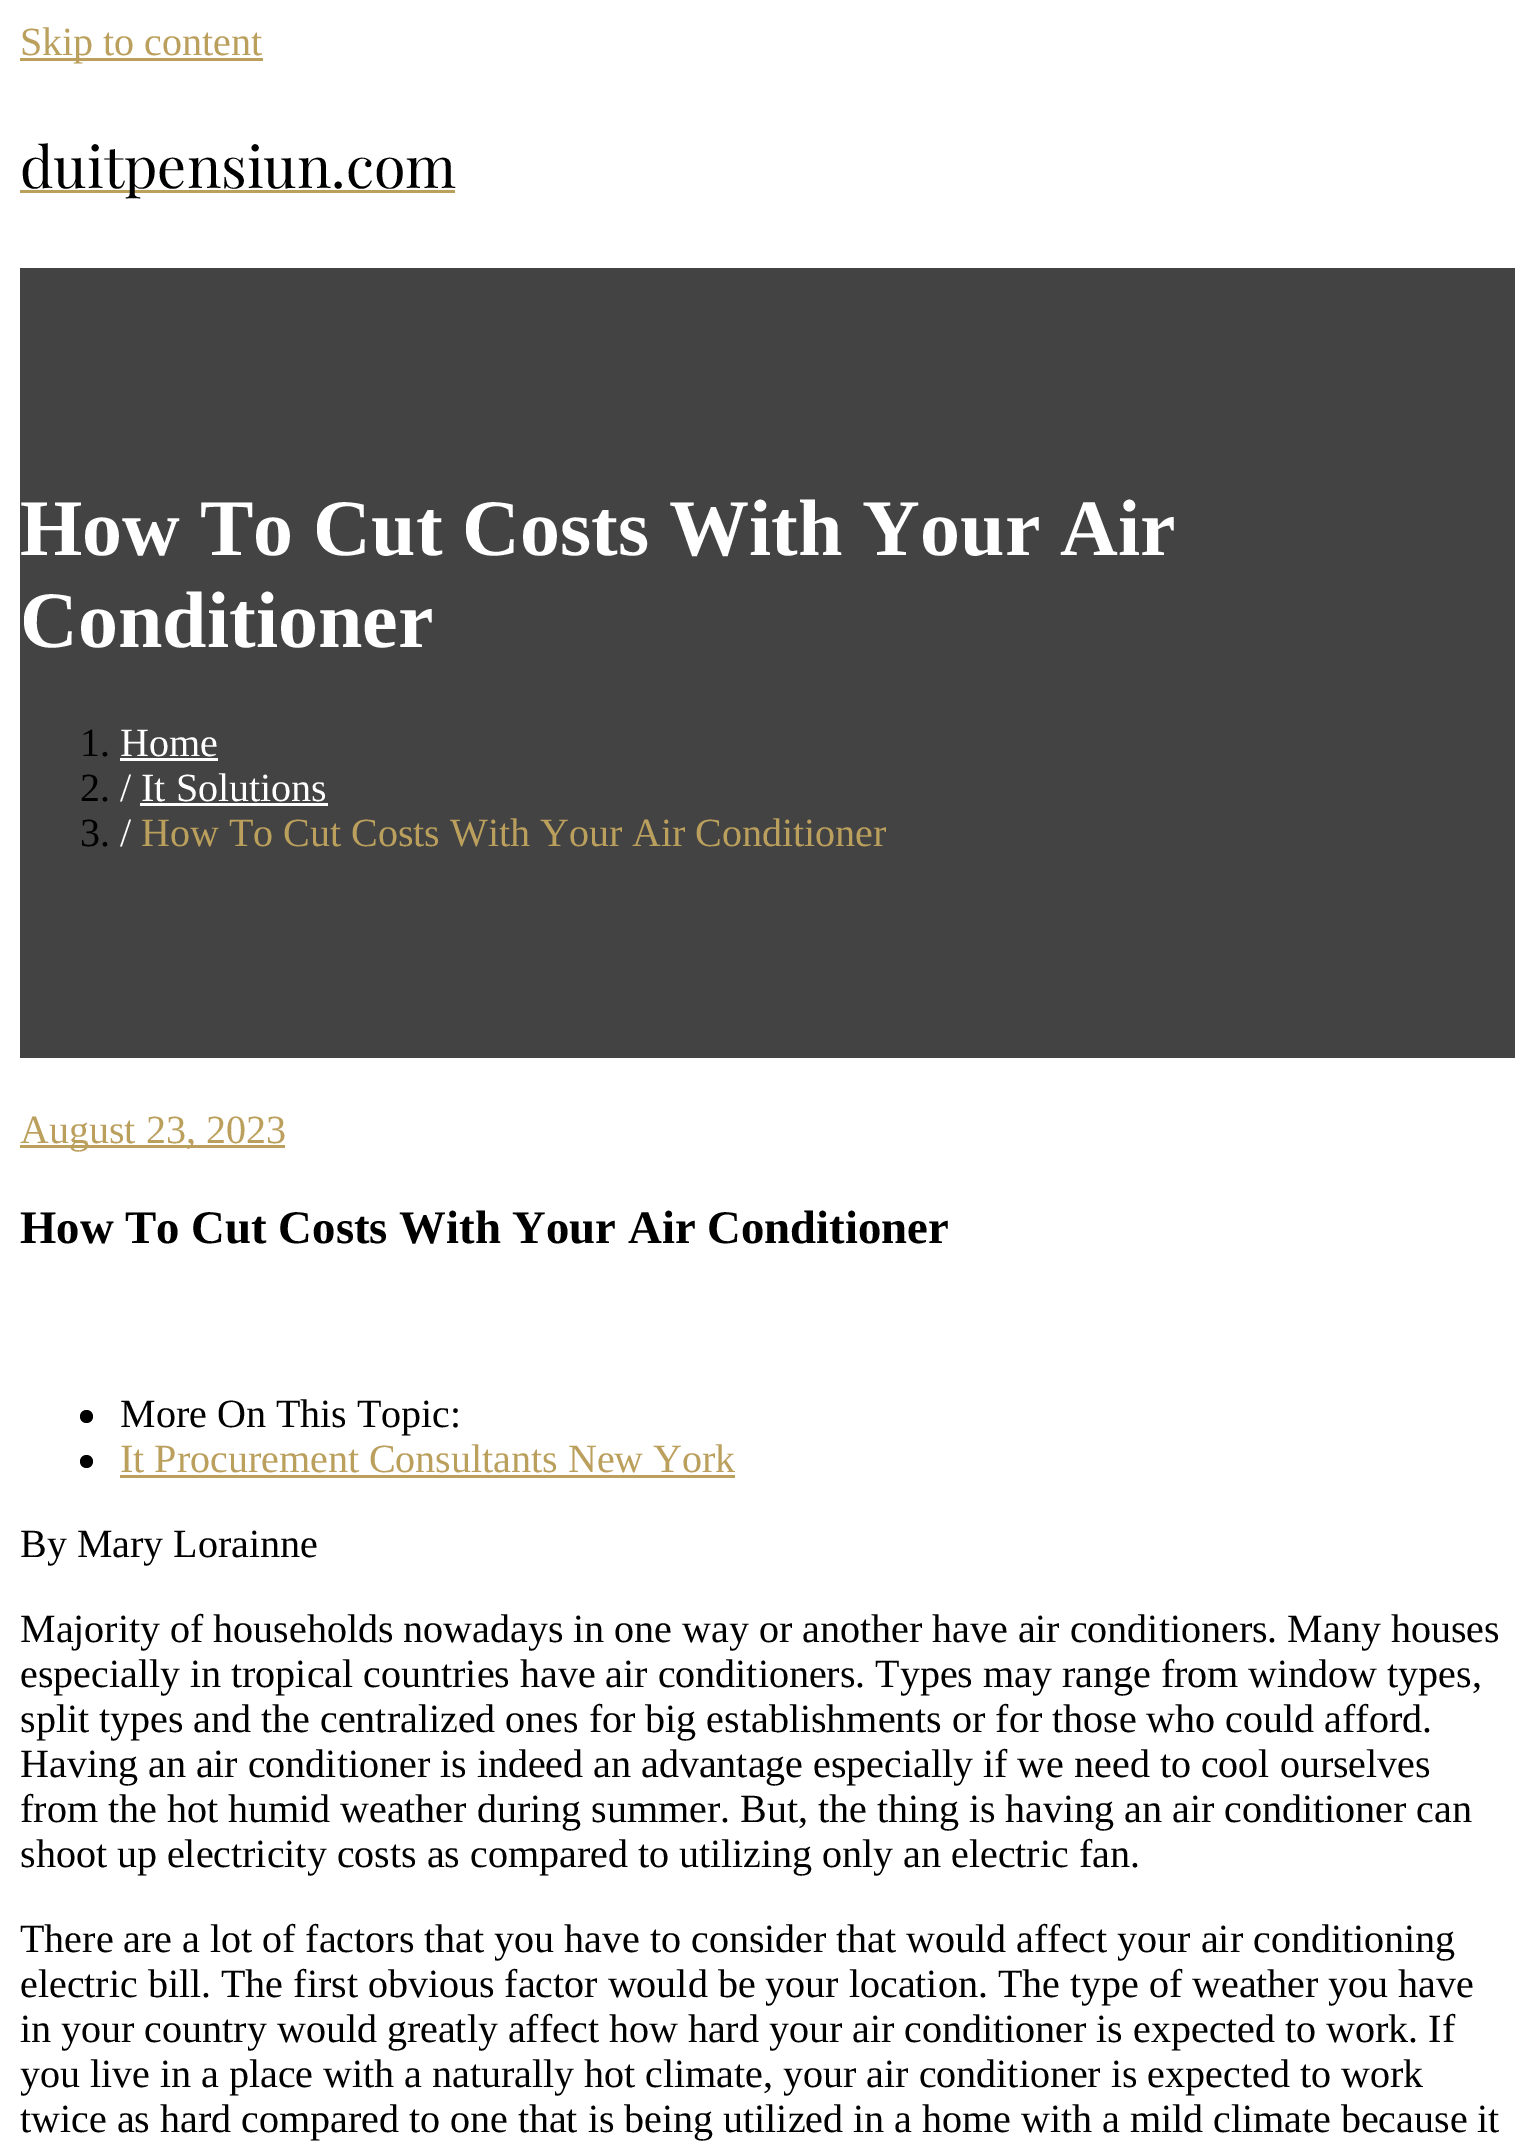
%!PS
<< /PageSize [1535 2156] >> setpagedevice
/fl/fill load def
/co { dup -16 bitshift 255 div exch dup -8 bitshift 255 and 255 div exch 255 and 255 div setrgbcolor } def
/fn { [ exch dup neg 0 0 3 -1 roll 0 0 ] selectfont } def
/tx { co fn moveto show } def
/bx { co rectfill } def
/ci { newpath 0 360 arc closepath } def
0 2156 translate 1 -1 scale
4 setmiterlimit
0 0 1535 2156 16#FFFFFF bx
20 58 243 3 16#BB9F5D bx
20 190 435 3 16#BB9F5D bx
20 268 1495 790 16#434343 bx
120 758 98 3 16#FFFFFF bx
140 803 188 3 16#FFFFFF bx
20 1145 265 3 16#BB9F5D bx
16#000000 co
86.5 1416.5 6.5 ci fl
86.5 1461.5 6.5 ci fl
120 1475 615 3 16#BB9F5D bx
(Skip to content) 20 55 /LiberationSerif-Regular 40 16#BB9F5D tx
(duitpensiun.com) 20 188 /PlayfairDisplay-Regular 57.5 16#000000 tx
(How To Cut Costs With Your Air) 20 555 /LiberationSerif-Bold 80 16#FFFFFF tx
(Conditioner) 20 647 /LiberationSerif-Bold 80 16#FFFFFF tx
(1.) 80 756 /LiberationSerif-Regular 40 16#000000 tx
(Home) 120 756 /LiberationSerif-Regular 40 16#FFFFFF tx
(2.) 80 801 /LiberationSerif-Regular 40 16#000000 tx
(/ It Solutions) 120 801 /LiberationSerif-Regular 40 16#FFFFFF tx
(3.) 80 846 /LiberationSerif-Regular 40 16#000000 tx
(/) 120 846 /LiberationSerif-Regular 40 16#FFFFFF tx
(How To Cut Costs With Your Air Conditioner) 141 846 /LiberationSerif-Regular 40 16#BB9F5D tx
(August 23, 2023) 20 1143 /LiberationSerif-Regular 40 16#BB9F5D tx
(How To Cut Costs With Your Air Conditioner) 20 1243 /LiberationSerif-Bold 46.75 16#000000 tx
(More On This Topic:) 120 1427 /LiberationSerif-Regular 40 16#000000 tx
(It Procurement Consultants New York) 120 1472 /LiberationSerif-Regular 40 16#BB9F5D tx
(By Mary Lorainne) 20 1557 /LiberationSerif-Regular 40 16#000000 tx
(Majority of households nowadays in one way or another have air conditioners. Many houses) 20 1642 /LiberationSerif-Regular 40 16#000000 tx
(especially in tropical countries have air conditioners. Types may range from window types,) 20 1687 /LiberationSerif-Regular 40 16#000000 tx
(split types and the centralized ones for big establishments or for those who could afford.) 20 1732 /LiberationSerif-Regular 40 16#000000 tx
(Having an air conditioner is indeed an advantage especially if we need to cool ourselves) 20 1777 /LiberationSerif-Regular 40 16#000000 tx
(from the hot humid weather during summer. But, the thing is having an air conditioner can) 20 1822 /LiberationSerif-Regular 40 16#000000 tx
(shoot up electricity costs as compared to utilizing only an electric fan.) 20 1867 /LiberationSerif-Regular 40 16#000000 tx
(There are a lot of factors that you have to consider that would affect your air conditioning) 20 1952 /LiberationSerif-Regular 40 16#000000 tx
(electric bill. The first obvious factor would be your location. The type of weather you have) 20 1997 /LiberationSerif-Regular 40 16#000000 tx
(in your country would greatly affect how hard your air conditioner is expected to work. If) 20 2042 /LiberationSerif-Regular 40 16#000000 tx
(you live in a place with a naturally hot climate, your air conditioner is expected to work) 20 2087 /LiberationSerif-Regular 40 16#000000 tx
(twice as hard compared to one that is being utilized in a home with a mild climate because it) 20 2132 /LiberationSerif-Regular 40 16#000000 tx
showpage
